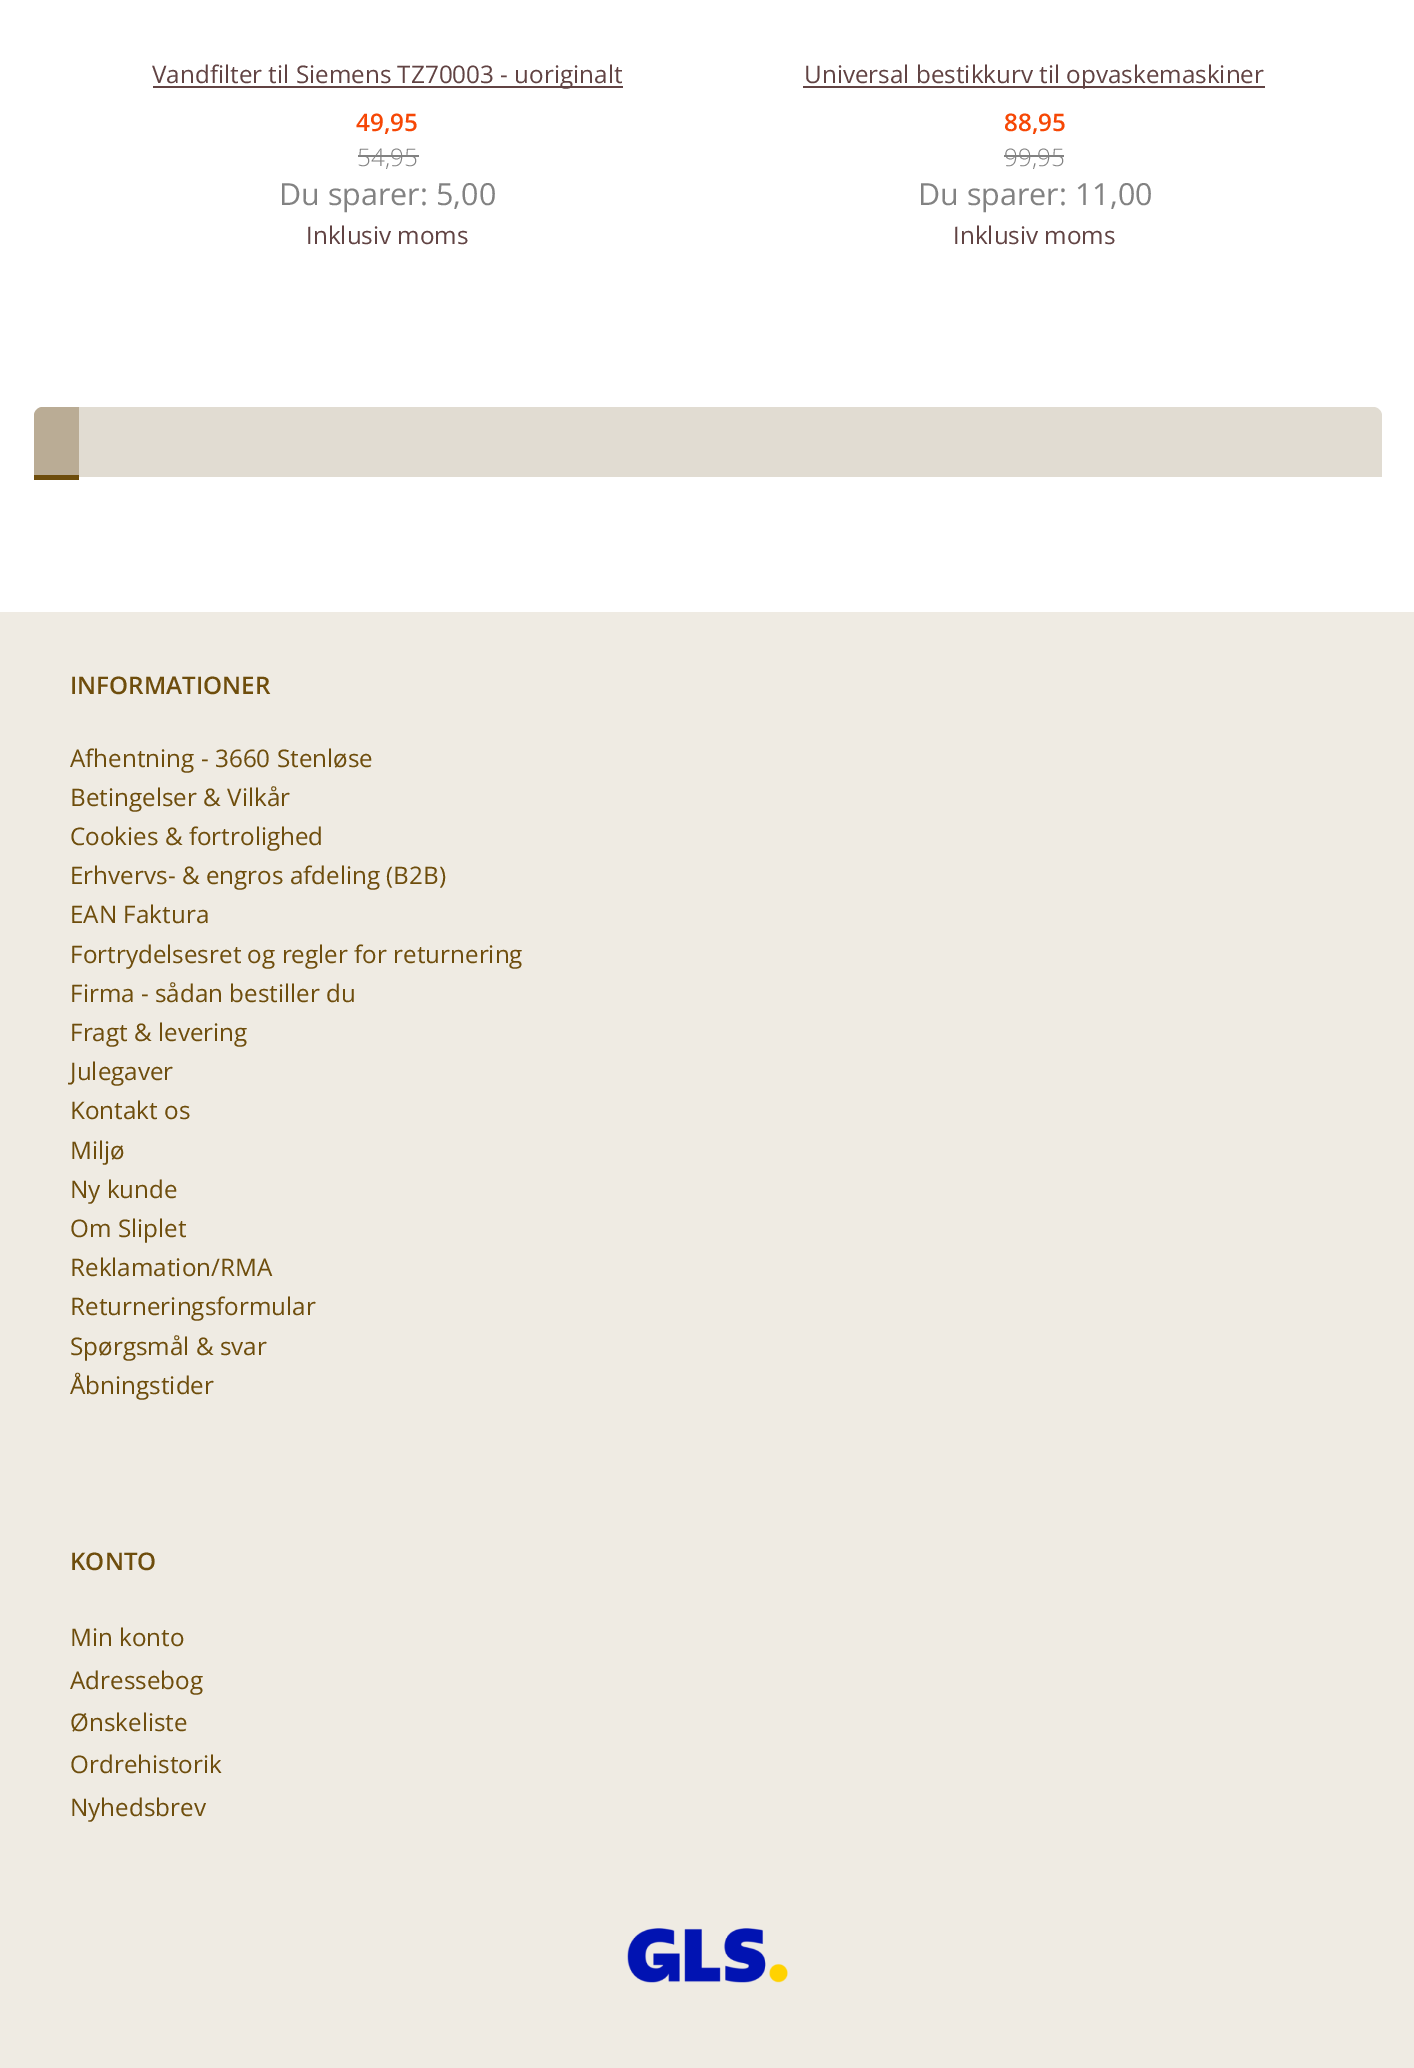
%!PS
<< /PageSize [1414 2068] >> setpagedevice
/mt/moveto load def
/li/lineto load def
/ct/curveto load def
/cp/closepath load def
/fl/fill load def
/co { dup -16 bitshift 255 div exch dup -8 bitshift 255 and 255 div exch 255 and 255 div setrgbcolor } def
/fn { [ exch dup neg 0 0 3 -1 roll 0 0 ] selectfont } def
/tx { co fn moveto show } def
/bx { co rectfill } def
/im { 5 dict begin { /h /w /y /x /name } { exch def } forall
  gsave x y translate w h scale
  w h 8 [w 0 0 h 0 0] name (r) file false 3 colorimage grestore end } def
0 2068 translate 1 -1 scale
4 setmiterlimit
0 0 1414 2068 16#FFFFFF bx
153 86 470 2 16#614343 bx
358 155 61 2 16#828282 bx
803 86 462 2 16#614343 bx
1004 155 60 2 16#828282 bx
16#E1DCD2 co
43 407 mt 1373 407 li 1378 407 1382 411 1382 416 ct 1382 477 li 34 477 li 34 416 li 34 411 38 407 43 407 ct cp fl
16#BAAC95 co
43 407 mt 79 407 li 79 479 li 34 479 li 34 416 li 34 411 38 407 43 407 ct cp fl
34 475 45 5 16#6E4D0C bx
0 612 1414 1456 16#EFEBE3 bx
(media/1.raw) 627 1928 161 55 im
(Vandfilter til Siemens TZ70003 - uoriginalt) 152 83 /OpenSans-Regular 24.25 16#614343 tx
(49,95) 356 131 /OpenSans-SemiBold 24.25 16#F64705 tx
(54,95) 357 166 /OpenSans-Light 24.25 16#828282 tx
(Du sparer: 5,00) 279 205 /OpenSans-Regular 30.5 16#828282 tx
(Inklusiv moms) 306 244 /OpenSans-Regular 24.25 16#614343 tx
(Universal bestikkurv til opvaskemaskiner) 804 83 /OpenSans-Regular 24.25 16#614343 tx
(88,95) 1004 131 /OpenSans-SemiBold 24.25 16#F64705 tx
(99,95) 1004 166 /OpenSans-Light 24.25 16#828282 tx
(Du sparer: 11,00) 918 205 /OpenSans-Regular 30.5 16#828282 tx
(Inklusiv moms) 953 244 /OpenSans-Regular 24.25 16#614343 tx
(INFORMATIONER) 70 694 /OpenSans-SemiBold 24.25 16#6E4D0C tx
(Afhentning - 3660 Stenløse) 70 767 /OpenSans-Regular 24.25 16#6E4D0C tx
(Betingelser & Vilkår) 70 806 /OpenSans-Regular 24.25 16#6E4D0C tx
(Cookies & fortrolighed) 70 845 /OpenSans-Regular 24.25 16#6E4D0C tx
(Erhvervs- & engros afdeling \(B2B\)) 70 884 /OpenSans-Regular 24.25 16#6E4D0C tx
(EAN Faktura) 70 923 /OpenSans-Regular 24.25 16#6E4D0C tx
(Fortrydelsesret og regler for returnering) 70 963 /OpenSans-Regular 24.25 16#6E4D0C tx
(Firma - sådan bestiller du) 70 1002 /OpenSans-Regular 24.25 16#6E4D0C tx
(Fragt & levering) 70 1041 /OpenSans-Regular 24.25 16#6E4D0C tx
(Julegaver) 70 1080 /OpenSans-Regular 24.25 16#6E4D0C tx
(Kontakt os) 70 1119 /OpenSans-Regular 24.25 16#6E4D0C tx
(Miljø) 70 1159 /OpenSans-Regular 24.25 16#6E4D0C tx
(Ny kunde) 70 1198 /OpenSans-Regular 24.25 16#6E4D0C tx
(Om Sliplet) 70 1237 /OpenSans-Regular 24.25 16#6E4D0C tx
(Reklamation/RMA) 70 1276 /OpenSans-Regular 24.25 16#6E4D0C tx
(Returneringsformular) 70 1315 /OpenSans-Regular 24.25 16#6E4D0C tx
(Spørgsmål & svar) 70 1355 /OpenSans-Regular 24.25 16#6E4D0C tx
(Åbningstider) 70 1394 /OpenSans-Regular 24.25 16#6E4D0C tx
(KONTO) 70 1570 /OpenSans-SemiBold 24.25 16#6E4D0C tx
(Min konto) 70 1646 /OpenSans-Regular 24.25 16#6E4D0C tx
(Adressebog) 70 1689 /OpenSans-Regular 24.25 16#6E4D0C tx
(Ønskeliste) 70 1731 /OpenSans-Regular 24.25 16#6E4D0C tx
(Ordrehistorik) 70 1773 /OpenSans-Regular 24.25 16#6E4D0C tx
(Nyhedsbrev) 70 1816 /OpenSans-Regular 24.25 16#6E4D0C tx
showpage
